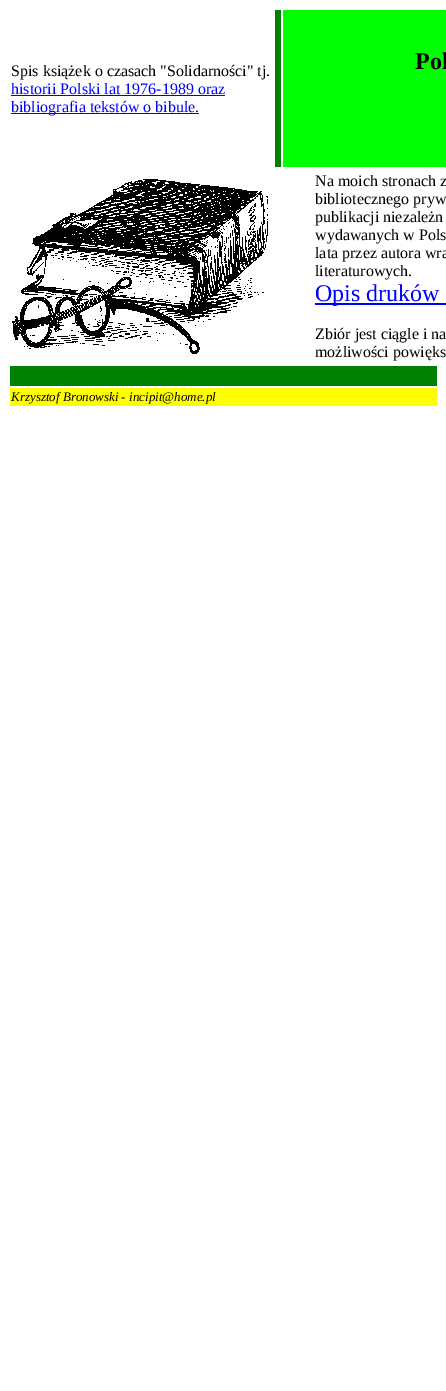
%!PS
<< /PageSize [446 1391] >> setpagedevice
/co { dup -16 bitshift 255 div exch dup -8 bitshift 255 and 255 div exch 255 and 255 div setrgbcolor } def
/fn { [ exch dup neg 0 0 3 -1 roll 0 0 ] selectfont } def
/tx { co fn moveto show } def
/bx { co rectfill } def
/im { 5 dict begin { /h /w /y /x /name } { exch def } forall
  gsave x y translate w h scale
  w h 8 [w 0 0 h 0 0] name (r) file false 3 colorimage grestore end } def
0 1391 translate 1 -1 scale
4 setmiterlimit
0 0 446 1391 16#FFFFFF bx
275 10 6 157 16#008000 bx
283 10 163 157 16#00FF00 bx
11 95 214 1 16#0000FF bx
11 113 188 1 16#0000FF bx
(media/1.raw) 12 179 256 175 im
315 303 131 2 16#0000FF bx
10 366 427 20 16#008000 bx
10 388 427 18 16#FFFF00 bx
(Pol) 415 69 /LiberationSerif-Bold 24 16#000000 tx
(Spis książek o czasach "Solidarności" tj.) 11 76 /LiberationSerif-Regular 16 16#000000 tx
(historii Polski lat 1976-1989 oraz) 11 94 /LiberationSerif-Regular 16 16#0000FF tx
(bibliografia tekstów o bibule.) 11 112 /LiberationSerif-Regular 16 16#0000FF tx
(Na moich stronach z) 315 186 /LiberationSerif-Regular 16 16#000000 tx
(bibliotecznego pryw) 315 204 /LiberationSerif-Regular 16 16#000000 tx
(publikacji niezależn) 315 222 /LiberationSerif-Regular 16 16#000000 tx
(wydawanych w Pols) 315 240 /LiberationSerif-Regular 16 16#000000 tx
(lata przez autora wra) 315 258 /LiberationSerif-Regular 16 16#000000 tx
(literaturowych.) 315 276 /LiberationSerif-Regular 16 16#000000 tx
(Opis druków) 315 301 /LiberationSerif-Regular 24 16#0000FF tx
(Zbiór jest ciągle i na) 315 339 /LiberationSerif-Regular 16 16#000000 tx
(możliwości powięks) 315 357 /LiberationSerif-Regular 16 16#000000 tx
(Krzysztof Bronowski - incipit@home.pl) 11 401 /LiberationSerif-Italic 13 16#000000 tx
showpage
